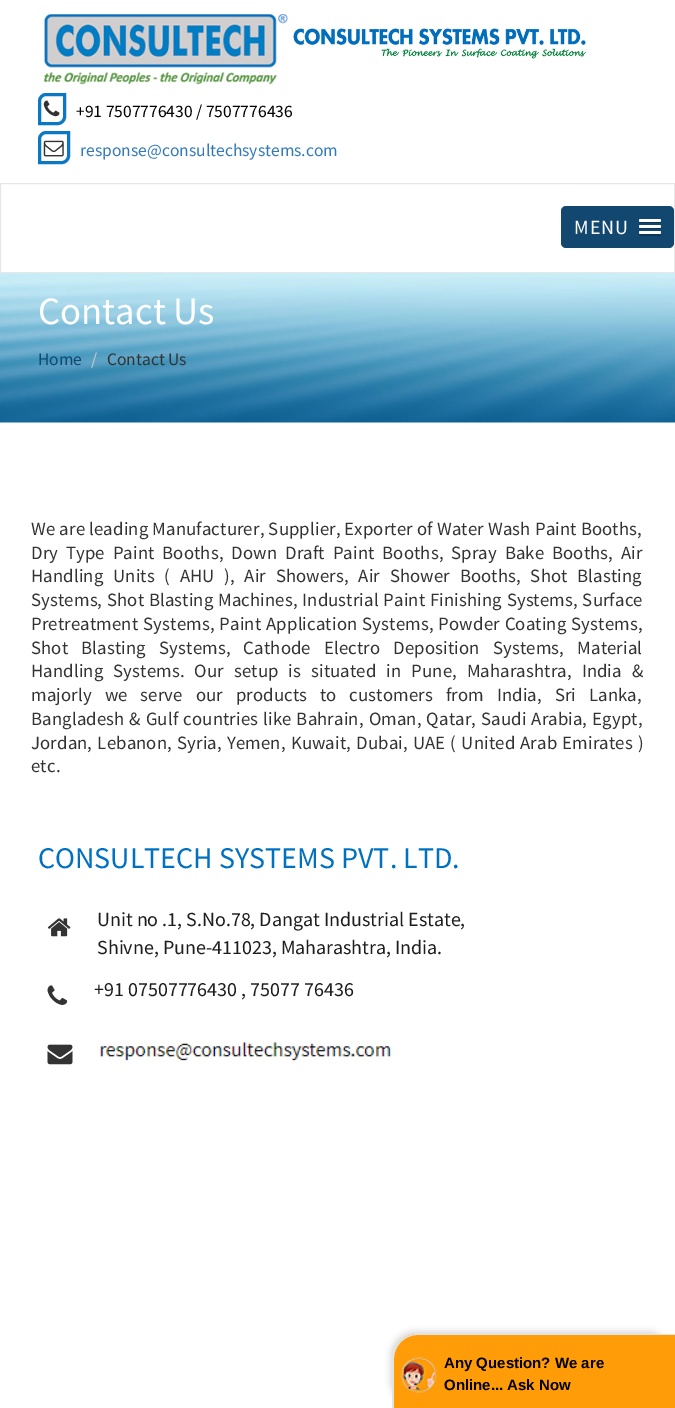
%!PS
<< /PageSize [675 1408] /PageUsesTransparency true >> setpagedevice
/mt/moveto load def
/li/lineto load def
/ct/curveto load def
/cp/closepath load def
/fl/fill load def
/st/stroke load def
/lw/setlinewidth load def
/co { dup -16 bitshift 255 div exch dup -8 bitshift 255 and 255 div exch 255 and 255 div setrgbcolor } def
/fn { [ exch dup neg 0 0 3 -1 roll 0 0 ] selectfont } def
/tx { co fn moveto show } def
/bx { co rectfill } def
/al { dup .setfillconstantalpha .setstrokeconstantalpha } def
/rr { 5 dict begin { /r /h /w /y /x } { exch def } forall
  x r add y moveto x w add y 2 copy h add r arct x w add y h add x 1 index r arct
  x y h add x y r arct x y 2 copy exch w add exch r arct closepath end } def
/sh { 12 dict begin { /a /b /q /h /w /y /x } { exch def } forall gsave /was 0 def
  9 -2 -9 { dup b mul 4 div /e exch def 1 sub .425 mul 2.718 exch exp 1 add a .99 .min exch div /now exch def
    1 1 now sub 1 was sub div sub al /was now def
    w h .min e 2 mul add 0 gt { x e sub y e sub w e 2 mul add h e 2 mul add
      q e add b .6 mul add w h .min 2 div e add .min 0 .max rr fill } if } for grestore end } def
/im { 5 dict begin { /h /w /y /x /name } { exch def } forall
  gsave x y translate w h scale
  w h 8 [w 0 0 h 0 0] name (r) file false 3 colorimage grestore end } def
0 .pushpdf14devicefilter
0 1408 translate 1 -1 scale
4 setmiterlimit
0 0 675 1408 16#FFFFFF bx
(media/1.raw) 44 14 244 71 im
(media/2.raw) 293 28 293 31 im
16#0B78C5 co
3 lw
46 94.5 mt 64.5 94.5 li 64.5 117 li 64.5 120.5 61.5 123.5 58 123.5 ct 39.5 123.5 li 39.5 101 li 39.5 97.5 42.5 94.5 46 94.5 ct cp st
(media/3.raw) 43 100 17 17 im
46 132.5 mt 68.5 132.5 li 68.5 156 li 68.5 159.5 65.5 162.5 62 162.5 ct 39.5 162.5 li 39.5 139 li 39.5 135.5 42.5 132.5 46 132.5 ct cp st
(media/4.raw) 43 140 21 17 im
16#E7E7E7 co
1 lw
.5 183.5 674 89 rectstroke
16#124870 co
561 206 113 42 5 rr fl
16#0E3654 co
639 221 mt 638 223.5 643 223 643.5 223 ct 656.5 223 li 657 223 662 223.5 661 221 ct 660 221.5 640 221.5 639 221 ct cp fl
16#FFFFFF co
639 219 22 3 1.5 rr fl
16#0E3654 co
639 227 mt 638.5 229.5 643 229 643.5 229 ct 656.5 229 li 657 229 661.5 229.5 661 227 ct 660 228 640 228 639 227 ct cp fl
16#FFFFFF co
639 225 22 3 1.5 rr fl
16#0E3654 co
639.5 233.5 mt 639 235 li 639.5 236.5 642.5 236 643.5 236 ct 656.5 236 li 657.5 236 660.5 236.5 661 235 ct 660.5 233.5 li cp fl
16#FFFFFF co
639 231 22 3 1.5 rr fl
(media/5.raw) 0 273 675 150 im
(media/6.raw) 47 918 24 19 im
(media/7.raw) 47 985 21 20 im
(media/8.raw) 47 1044 26 21 im
(media/9.raw) 99 1041 293 20 im
16#323232 co
390 1331 283 75 25 3 .17 sh
16#FF9C08 co
418 1334 mt 675 1334 li 675 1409 li 393 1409 li 393 1359 li 393 1345 404 1334 418 1334 ct cp fl
16#E3E3E3 co
418 1334 mt 675 1334 li 675 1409 li 392 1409 li 392 1359 li 392 1345 404 1334 418 1334 ct cp 418 1335 mt 675 1335 li 675 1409 li 394 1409 li 394 1359 li 394 1346 404 1335 418 1335 ct cp eofill
(media/10.raw) 401 1357 36 36 im
(+91 7507776430 / 7507776436) 76 117 /SourceSansPro-Regular 17.5 16#000000 tx
(response@consultechsystems.com) 80 156 /SourceSansPro-Regular 17.5 16#337AB7 tx
/SourceSansPro-Regular 20 fn
16#FFFFFF co
574 234 mt 1 0 (MENU) ashow
(Contact Us) 38 324 /SourceSansPro-Regular 38.75 16#FFFFFF tx
(Home) 38 365 /SourceSansPro-Regular 17.5 16#124870 tx
(/) 91 365 /SourceSansPro-Regular 17.5 16#CCCCCC tx
(Contact Us) 107 365 /SourceSansPro-Regular 17.5 16#333333 tx
/SourceSansPro-Regular 18.75 fn
31 535 mt .25 0 32 .12 0 (We are leading Manufacturer, Supplier, Exporter of Water Wash Paint Booths,) awidthshow
31 559 mt 3.9 0 32 .12 0 (Dry Type Paint Booths, Down Draft Paint Booths, Spray Bake Booths, Air) awidthshow
31 582 mt 5.75 0 32 .12 0 (Handling Units \( AHU \), Air Showers, Air Shower Booths, Shot Blasting) awidthshow
31 606 mt .75 0 32 .12 0 (Systems, Shot Blasting Machines, Industrial Paint Finishing Systems, Surface) awidthshow
31 630 mt 1.1 0 32 .12 0 (Pretreatment Systems, Paint Application Systems, Powder Coating Systems,) awidthshow
31 654 mt 9.25 0 32 .12 0 (Shot Blasting Systems, Cathode Electro Deposition Systems, Material) awidthshow
31 677 mt 6 0 32 .12 0 (Handling Systems. Our setup is situated in Pune, Maharashtra, India &) awidthshow
31 701 mt 9 0 32 .12 0 (majorly we serve our products to customers from India, Sri Lanka,) awidthshow
31 725 mt 1.1 0 32 .12 0 (Bangladesh & Gulf countries like Bahrain, Oman, Qatar, Saudi Arabia, Egypt,) awidthshow
31 749 mt 1.25 0 32 .12 0 (Jordan, Lebanon, Syria, Yemen, Kuwait, Dubai, UAE \( United Arab Emirates \)) awidthshow
31 772 mt .12 0 (etc.) ashow
(CONSULTECH SYSTEMS PVT. LTD.) 38 868 /SourceSansPro-Regular 30 16#0071C1 tx
(Unit no .1, S.No.78, Dangat Industrial Estate,) 97 926 /SourceSansPro-Regular 20 16#1D1D1D tx
(Shivne, Pune-411023, Maharashtra, India.) 97 954 /SourceSansPro-Regular 20 16#1D1D1D tx
(+91 07507776430 , 75077 76436) 94 996 /SourceSansPro-Regular 20 16#1D1D1D tx
(Any Question? We are) 444 1368 /LiberationSans-Bold 15 16#000000 tx
(Online... Ask Now) 444 1390 /LiberationSans-Bold 15 16#000000 tx
.poppdf14devicefilter showpage
